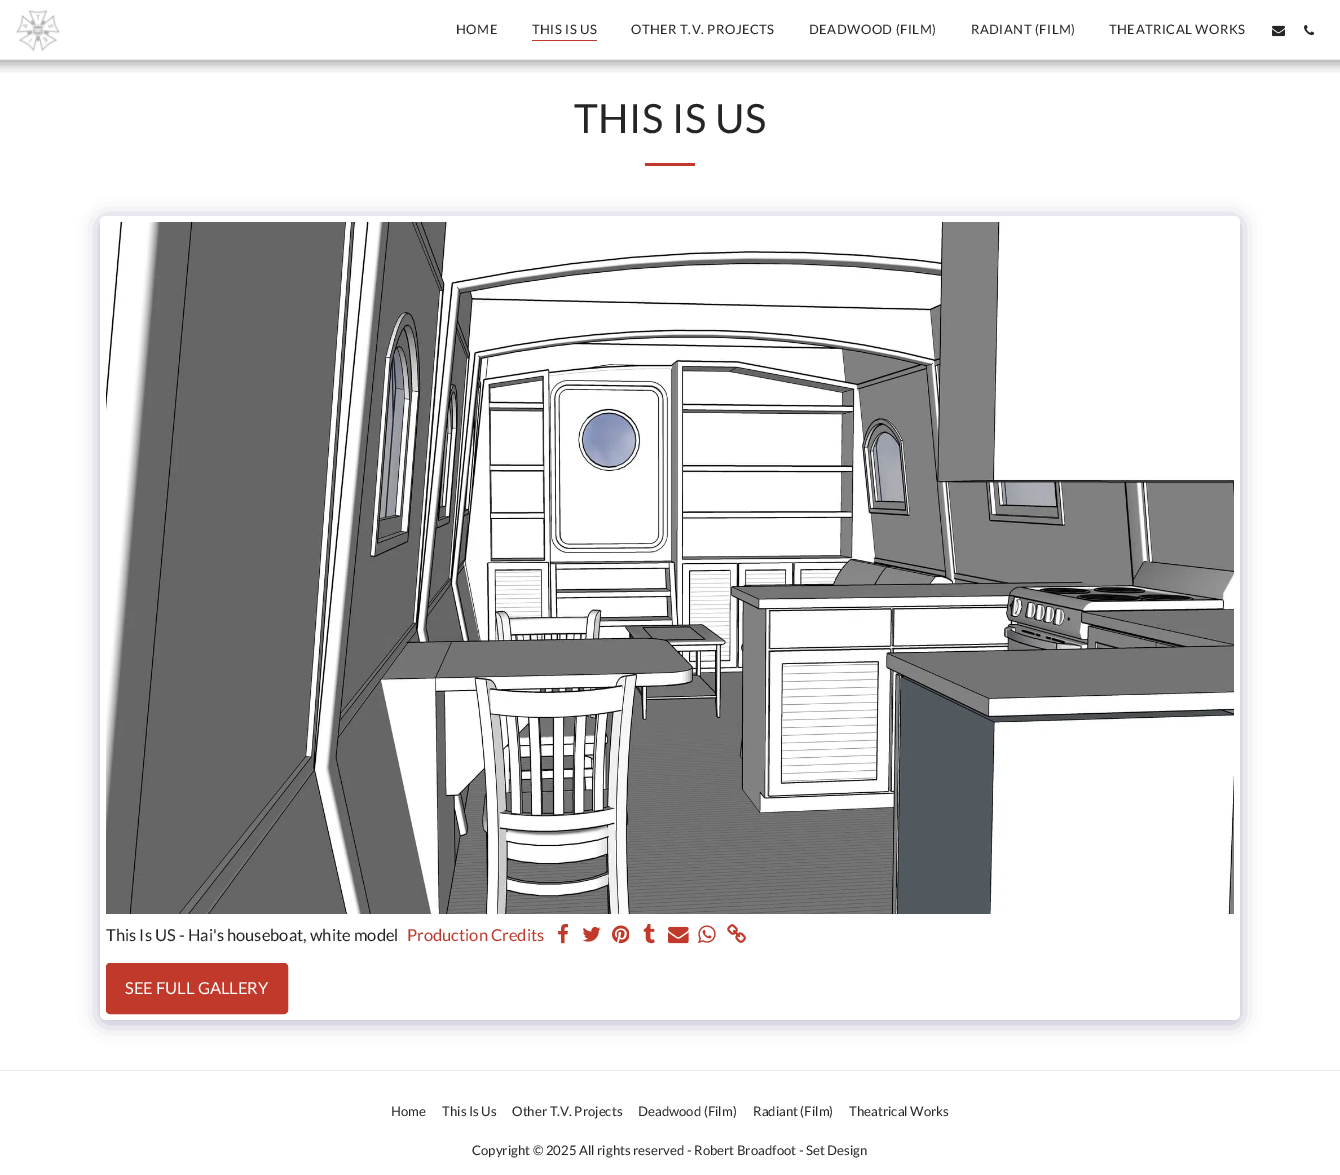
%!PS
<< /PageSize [1340 1175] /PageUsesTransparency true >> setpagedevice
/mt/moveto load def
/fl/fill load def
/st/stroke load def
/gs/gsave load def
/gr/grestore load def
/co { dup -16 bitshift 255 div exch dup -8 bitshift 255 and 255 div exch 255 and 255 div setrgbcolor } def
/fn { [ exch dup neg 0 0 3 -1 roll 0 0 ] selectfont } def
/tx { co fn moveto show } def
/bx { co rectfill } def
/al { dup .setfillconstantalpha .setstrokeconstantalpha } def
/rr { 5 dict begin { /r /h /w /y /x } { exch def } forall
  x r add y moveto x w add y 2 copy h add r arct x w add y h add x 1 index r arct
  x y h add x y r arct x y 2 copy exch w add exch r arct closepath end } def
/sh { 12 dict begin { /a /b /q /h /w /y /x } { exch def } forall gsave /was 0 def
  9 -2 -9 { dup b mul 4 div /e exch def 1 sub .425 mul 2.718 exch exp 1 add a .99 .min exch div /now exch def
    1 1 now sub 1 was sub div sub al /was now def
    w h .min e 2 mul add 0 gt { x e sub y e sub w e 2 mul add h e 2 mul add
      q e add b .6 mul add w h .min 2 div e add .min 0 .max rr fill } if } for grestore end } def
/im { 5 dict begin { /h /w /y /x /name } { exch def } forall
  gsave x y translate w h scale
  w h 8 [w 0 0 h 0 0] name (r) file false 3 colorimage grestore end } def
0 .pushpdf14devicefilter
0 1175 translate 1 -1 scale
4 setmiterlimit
0 0 1340 1175 16#FFFFFF bx
gs
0 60 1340 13 rectclip
16#000000 co
-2 0 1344 64 0 6 .35 sh
gr
0 59 1340 1 16#EBEBEB bx
(media/1.raw) 16 9 44 43 im
532 40 65 1 16#C0392B bx
(media/2.raw) 1272 25 13 12 im
(media/3.raw) 1304 25 11 11 im
645 163 50 3 16#C0392B bx
16#4D3F7A co
100 219 1140 804 6 10 .4 sh
16#FFFFFF co
100 216 1140 804 6 rr fl
(media/4.raw) 106 222 1128 692 im
(media/5.raw) 558 924 11 20 im
(media/6.raw) 582 927 19 15 im
(media/7.raw) 612 925 17 19 im
(media/8.raw) 643 924 12 20 im
(media/9.raw) 668 926 21 18 im
(media/10.raw) 698 925 18 19 im
(media/11.raw) 727 924 19 19 im
16#C0392B co
106.5 963.5 181 50 3.5 rr gs fl gr
st
0 1070 1340 1 16#EBEBEB bx
/Lato-Regular 13 fn
16#252525 co
456 34 mt .5 0 (HOME) ashow
532 34 mt .5 0 (THIS IS US) ashow
631 34 mt .5 0 (OTHER T.V. PROJECTS) ashow
809 34 mt .5 0 (DEADWOOD \(FILM\)) ashow
971 34 mt .5 0 (RADIANT \(FILM\)) ashow
1109 34 mt .5 0 (THEATRICAL WORKS) ashow
/Lato-Regular 40.25 fn
574 133 mt .5 0 (THIS IS US) ashow
(This Is US - Hai's houseboat, white model) 106 941 /Lato-Regular 16.5 16#252525 tx
(Production Credits) 407 941 /Lato-Regular 16.5 16#C0392B tx
(SEE FULL GALLERY) 125 994 /Lato-Regular 16.5 16#FFFFFF tx
(Home) 391 1116 /Lato-Regular 13.2 16#252525 tx
(This Is Us) 442 1116 /Lato-Regular 13.2 16#252525 tx
(Other T.V. Projects) 512 1116 /Lato-Regular 13.2 16#252525 tx
(Deadwood \(Film\)) 638 1116 /Lato-Regular 13.2 16#252525 tx
(Radiant \(Film\)) 753 1116 /Lato-Regular 13.2 16#252525 tx
(Theatrical Works) 849 1116 /Lato-Regular 13.2 16#252525 tx
(Copyright © 2025 All rights reserved - Robert Broadfoot - Set Design) 472 1155 /Lato-Regular 13.2 16#252525 tx
.poppdf14devicefilter showpage
